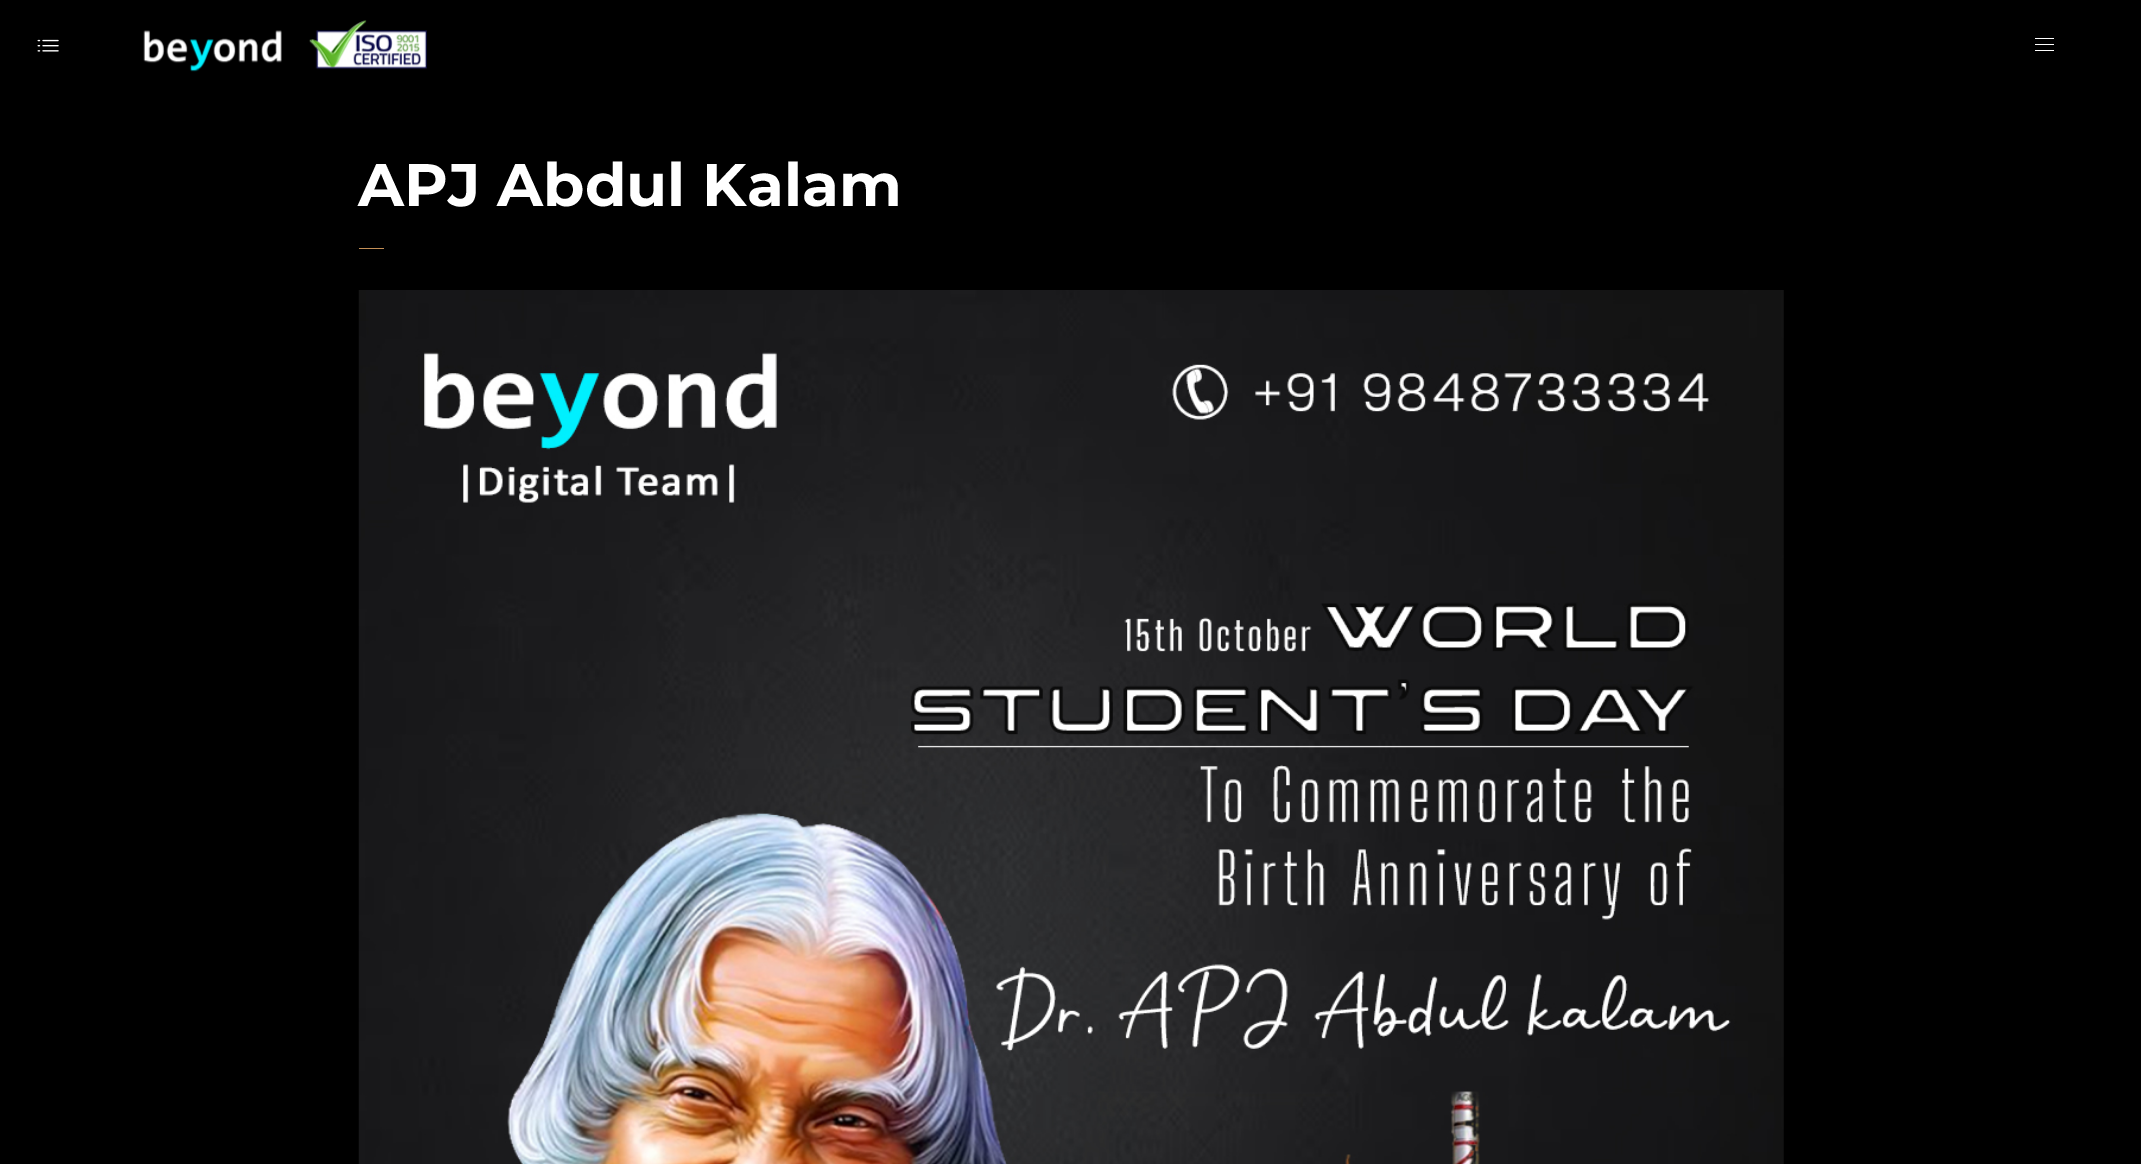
%!PS
<< /PageSize [2141 1164] >> setpagedevice
/co { dup -16 bitshift 255 div exch dup -8 bitshift 255 and 255 div exch 255 and 255 div setrgbcolor } def
/fn { [ exch dup neg 0 0 3 -1 roll 0 0 ] selectfont } def
/tx { co fn moveto show } def
/bx { co rectfill } def
/im { 5 dict begin { /h /w /y /x /name } { exch def } forall
  gsave x y translate w h scale
  w h 8 [w 0 0 h 0 0] name (r) file false 3 colorimage grestore end } def
0 1164 translate 1 -1 scale
4 setmiterlimit
0 0 2141 1164 16#000000 bx
(media/1.raw) 37 39 22 13 im
(media/2.raw) 143 20 284 52 im
2035 38 19 1 16#FFFFFF bx
2035 44 19 1 16#FFFFFF bx
2035 50 19 1 16#FFFFFF bx
359 248 25 1 16#C48F56 bx
(media/3.raw) 358 290 1426 874 im
(APJ Abdul Kalam) 358 206 /Montserrat-Bold 60 16#FFFFFF tx
showpage
